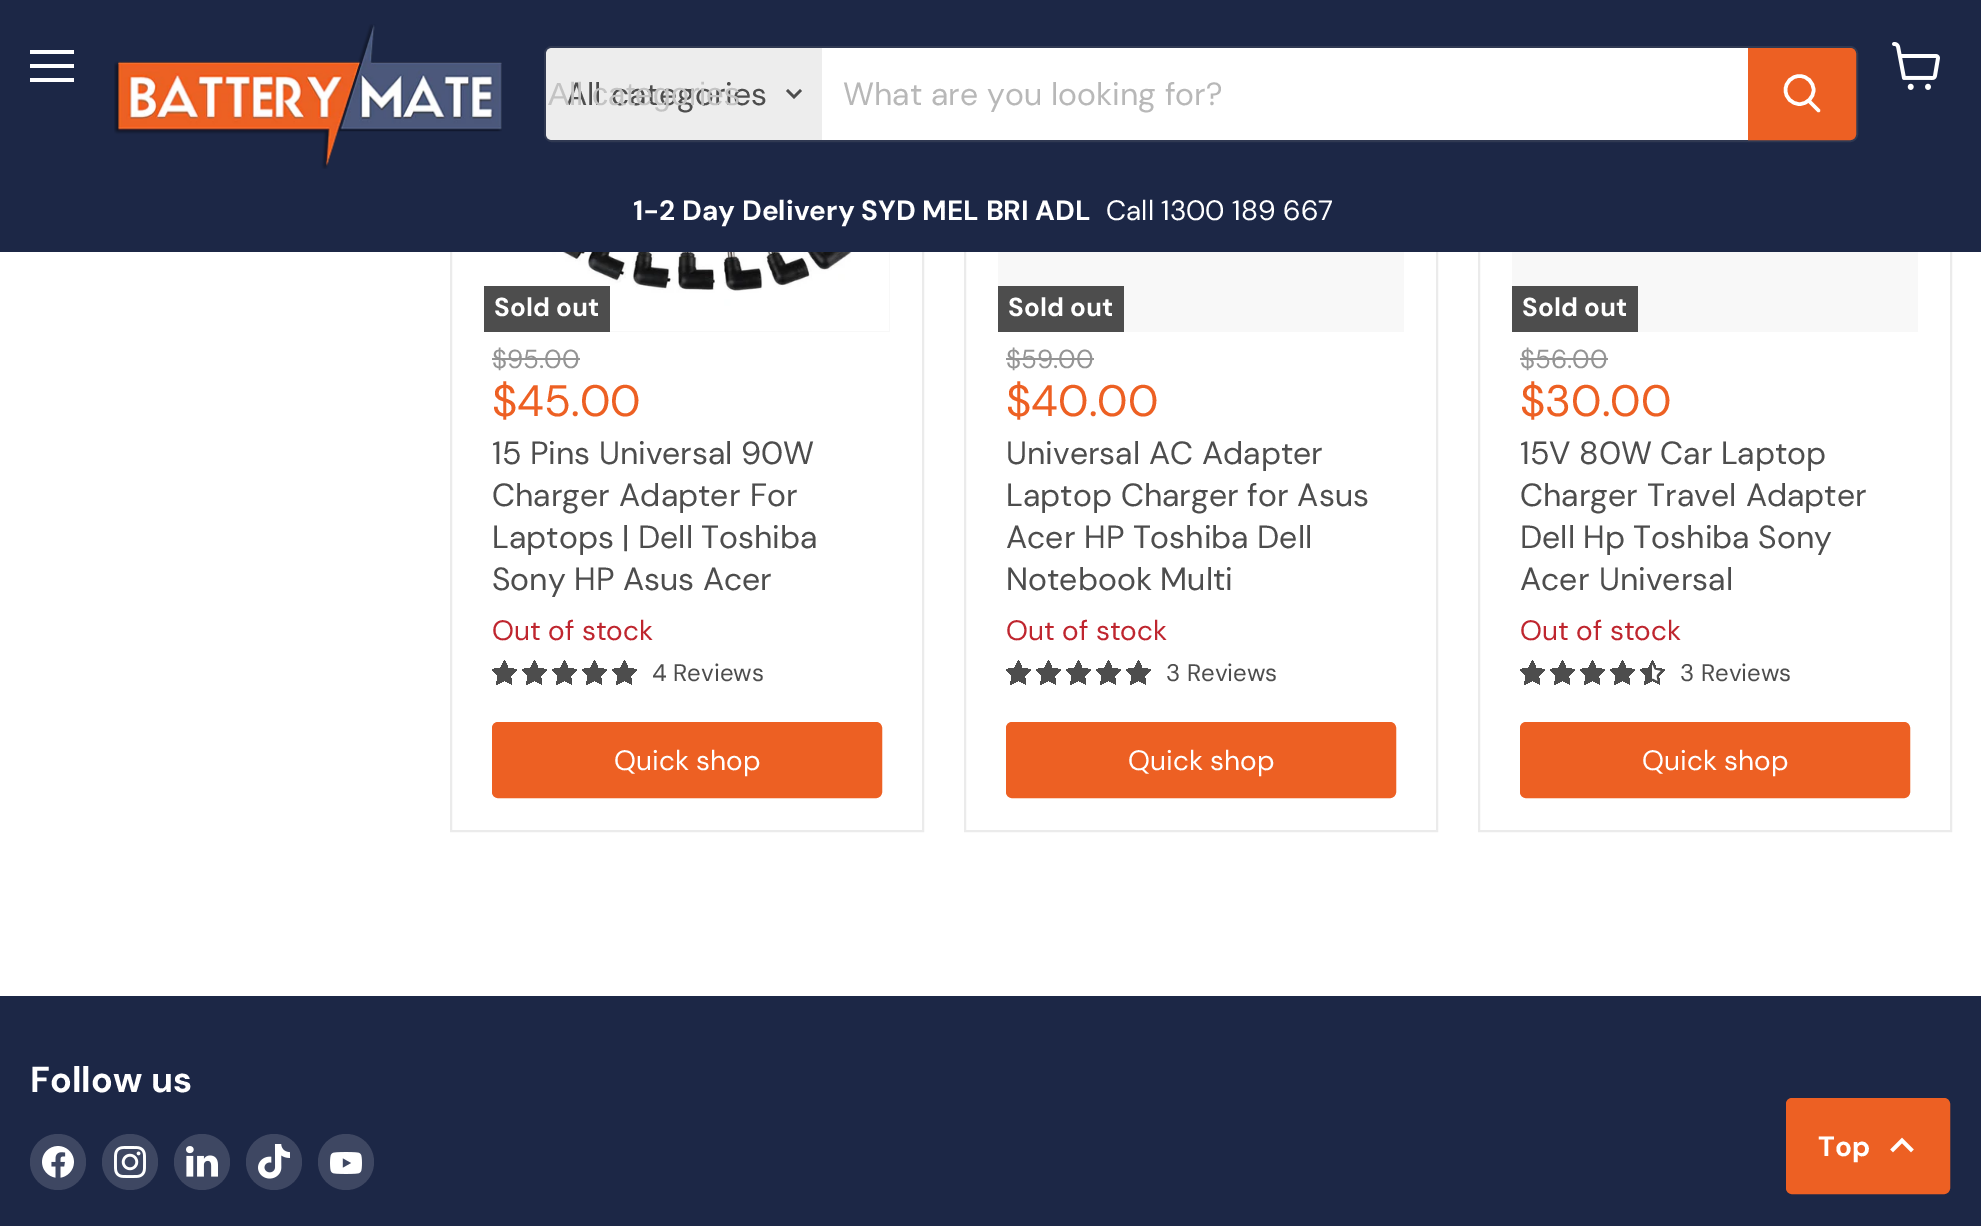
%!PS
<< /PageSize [1981 1226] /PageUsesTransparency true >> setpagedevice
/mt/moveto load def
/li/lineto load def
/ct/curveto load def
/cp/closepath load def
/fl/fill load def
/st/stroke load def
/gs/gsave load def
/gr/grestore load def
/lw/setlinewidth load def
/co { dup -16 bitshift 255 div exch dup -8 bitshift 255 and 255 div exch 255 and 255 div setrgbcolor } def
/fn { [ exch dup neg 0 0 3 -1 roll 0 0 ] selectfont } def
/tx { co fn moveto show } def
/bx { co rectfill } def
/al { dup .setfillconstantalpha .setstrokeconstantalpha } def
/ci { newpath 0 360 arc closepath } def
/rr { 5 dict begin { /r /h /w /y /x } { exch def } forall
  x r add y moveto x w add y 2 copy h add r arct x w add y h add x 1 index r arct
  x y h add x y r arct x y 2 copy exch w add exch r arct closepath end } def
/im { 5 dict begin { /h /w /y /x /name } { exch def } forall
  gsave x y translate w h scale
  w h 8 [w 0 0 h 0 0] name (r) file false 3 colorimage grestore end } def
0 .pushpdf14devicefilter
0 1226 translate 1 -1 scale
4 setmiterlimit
0 0 1981 1226 16#FFFFFF bx
16#EBEBEB co
2 lw
451 -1 472 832 rectstroke
965 -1 472 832 rectstroke
1479 -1 472 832 rectstroke
0 0 1981 252 16#1C2746 bx
30 50 44 4 16#FFFFFF bx
30 64 44 4 16#FFFFFF bx
30 78 44 4 16#FFFFFF bx
(media/1.raw) 1892 42 48 48 im
(media/2.raw) 114 24 388 145 im
0.2 al
16#808080 co
545 47 1312 94 7 rr st
1 al
16#EDEDED co
552 48 mt 822 48 li 822 140 li 552 140 li 548.5 140 546 137.5 546 134 ct 546 54 li 546 50.5 548.5 48 552 48 ct cp fl
16#4D4D4D co
2.5 lw
2 setlinecap
794 97 mt 800 91 li 794 97 mt 788 91 li st
822 48 926 92 16#FFFFFF bx
16#ED6023 co
1749 49 mt 1850 49 li 1853 49 1855 51 1855 54 ct 1855 134 li 1855 137 1853 139 1850 139 ct 1749 139 li cp gs fl gr
2 lw
0 setlinecap
st
16#FFFFFF co
3.5 lw
1 setlinecap
1818.5 110.5 mt 1809 101 li st
0 setlinecap
1799.5 90 14 ci st
610 252 280 80 16#F8F8F8 bx
(media/3.raw) 484 252 405 79 im
484 286 126 46 16#4D4D4D bx
492 358 88 2 16#949494 bx
16#4D4D4D co
504.5 660 mt 500.5 668 li 492 669.5 li 498 676 li 496.5 684.5 li 504.5 680.5 li 512 684.5 li 510.5 676 li 516.5 669.5 li 508 668 li cp fl
gs
504.5 660 mt 508 668 li 516.5 669.5 li 510.5 676 li 512 684.5 li 504.5 680.5 li 496.5 684.5 li 498 676 li 492 669.5 li 500.5 668 li cp clip newpath
1 setlinecap
1 setlinejoin
504.5 660 mt 508 668 li 516.5 669.5 li 510.5 676 li 512 684.5 li 504.5 680.5 li 496.5 684.5 li 498 676 li 492 669.5 li 500.5 668 li cp st
gr
534.5 660 mt 530.5 668 li 522 669.5 li 528 676 li 526.5 684.5 li 534.5 680.5 li 542 684.5 li 540.5 676 li 546.5 669.5 li 538 668 li cp fl
gs
534.5 660 mt 538 668 li 546.5 669.5 li 540.5 676 li 542 684.5 li 534.5 680.5 li 526.5 684.5 li 528 676 li 522 669.5 li 530.5 668 li cp clip newpath
1 setlinecap
1 setlinejoin
534.5 660 mt 538 668 li 546.5 669.5 li 540.5 676 li 542 684.5 li 534.5 680.5 li 526.5 684.5 li 528 676 li 522 669.5 li 530.5 668 li cp st
gr
564.5 660 mt 560.5 668 li 552 669.5 li 558 676 li 556.5 684.5 li 564.5 680.5 li 572 684.5 li 570.5 676 li 576.5 669.5 li 568 668 li cp fl
gs
564.5 660 mt 568 668 li 576.5 669.5 li 570.5 676 li 572 684.5 li 564.5 680.5 li 556.5 684.5 li 558 676 li 552 669.5 li 560.5 668 li cp clip newpath
1 setlinecap
1 setlinejoin
564.5 660 mt 568 668 li 576.5 669.5 li 570.5 676 li 572 684.5 li 564.5 680.5 li 556.5 684.5 li 558 676 li 552 669.5 li 560.5 668 li cp st
gr
594.5 660 mt 590.5 668 li 582 669.5 li 588 676 li 586.5 684.5 li 594.5 680.5 li 602 684.5 li 600.5 676 li 606.5 669.5 li 598 668 li cp fl
gs
594.5 660 mt 598 668 li 606.5 669.5 li 600.5 676 li 602 684.5 li 594.5 680.5 li 586.5 684.5 li 588 676 li 582 669.5 li 590.5 668 li cp clip newpath
1 setlinecap
1 setlinejoin
594.5 660 mt 598 668 li 606.5 669.5 li 600.5 676 li 602 684.5 li 594.5 680.5 li 586.5 684.5 li 588 676 li 582 669.5 li 590.5 668 li cp st
gr
624.5 660 mt 620.5 668 li 612 669.5 li 618 676 li 616.5 684.5 li 624.5 680.5 li 632 684.5 li 630.5 676 li 636.5 669.5 li 628 668 li cp fl
gs
624.5 660 mt 628 668 li 636.5 669.5 li 630.5 676 li 632 684.5 li 624.5 680.5 li 616.5 684.5 li 618 676 li 612 669.5 li 620.5 668 li cp clip newpath
1 setlinecap
1 setlinejoin
624.5 660 mt 628 668 li 636.5 669.5 li 630.5 676 li 632 684.5 li 624.5 680.5 li 616.5 684.5 li 618 676 li 612 669.5 li 620.5 668 li cp st
gr
16#ED6023 co
493 723 388 74 5 rr gs fl gr
2 lw
st
998 252 406 80 16#F8F8F8 bx
998 286 126 46 16#4D4D4D bx
1006 358 88 2 16#949494 bx
16#4D4D4D co
1018.5 660 mt 1014.5 668 li 1006 669.5 li 1012 676 li 1010.5 684.5 li 1018.5 680.5 li 1026 684.5 li 1024.5 676 li 1030.5 669.5 li 1022 668 li cp fl
gs
1018.5 660 mt 1022 668 li 1030.5 669.5 li 1024.5 676 li 1026 684.5 li 1018.5 680.5 li 1010.5 684.5 li 1012 676 li 1006 669.5 li 1014.5 668 li cp clip newpath
3.5 lw
1 setlinecap
1 setlinejoin
1018.5 660 mt 1022 668 li 1030.5 669.5 li 1024.5 676 li 1026 684.5 li 1018.5 680.5 li 1010.5 684.5 li 1012 676 li 1006 669.5 li 1014.5 668 li cp st
gr
1048.5 660 mt 1044.5 668 li 1036 669.5 li 1042 676 li 1040.5 684.5 li 1048.5 680.5 li 1056 684.5 li 1054.5 676 li 1060.5 669.5 li 1052 668 li cp fl
gs
1048.5 660 mt 1052 668 li 1060.5 669.5 li 1054.5 676 li 1056 684.5 li 1048.5 680.5 li 1040.5 684.5 li 1042 676 li 1036 669.5 li 1044.5 668 li cp clip newpath
3.5 lw
1 setlinecap
1 setlinejoin
1048.5 660 mt 1052 668 li 1060.5 669.5 li 1054.5 676 li 1056 684.5 li 1048.5 680.5 li 1040.5 684.5 li 1042 676 li 1036 669.5 li 1044.5 668 li cp st
gr
1078.5 660 mt 1074.5 668 li 1066 669.5 li 1072 676 li 1070.5 684.5 li 1078.5 680.5 li 1086 684.5 li 1084.5 676 li 1090.5 669.5 li 1082 668 li cp fl
gs
1078.5 660 mt 1082 668 li 1090.5 669.5 li 1084.5 676 li 1086 684.5 li 1078.5 680.5 li 1070.5 684.5 li 1072 676 li 1066 669.5 li 1074.5 668 li cp clip newpath
3.5 lw
1 setlinecap
1 setlinejoin
1078.5 660 mt 1082 668 li 1090.5 669.5 li 1084.5 676 li 1086 684.5 li 1078.5 680.5 li 1070.5 684.5 li 1072 676 li 1066 669.5 li 1074.5 668 li cp st
gr
1108.5 660 mt 1104.5 668 li 1096 669.5 li 1102 676 li 1100.5 684.5 li 1108.5 680.5 li 1116 684.5 li 1114.5 676 li 1120.5 669.5 li 1112 668 li cp fl
gs
1108.5 660 mt 1112 668 li 1120.5 669.5 li 1114.5 676 li 1116 684.5 li 1108.5 680.5 li 1100.5 684.5 li 1102 676 li 1096 669.5 li 1104.5 668 li cp clip newpath
3.5 lw
1 setlinecap
1 setlinejoin
1108.5 660 mt 1112 668 li 1120.5 669.5 li 1114.5 676 li 1116 684.5 li 1108.5 680.5 li 1100.5 684.5 li 1102 676 li 1096 669.5 li 1104.5 668 li cp st
gr
1138.5 660 mt 1134.5 668 li 1126 669.5 li 1132 676 li 1130.5 684.5 li 1138.5 680.5 li 1146 684.5 li 1144.5 676 li 1150.5 669.5 li 1142 668 li cp fl
gs
1138.5 660 mt 1142 668 li 1150.5 669.5 li 1144.5 676 li 1146 684.5 li 1138.5 680.5 li 1130.5 684.5 li 1132 676 li 1126 669.5 li 1134.5 668 li cp clip newpath
3.5 lw
1 setlinecap
1 setlinejoin
1138.5 660 mt 1142 668 li 1150.5 669.5 li 1144.5 676 li 1146 684.5 li 1138.5 680.5 li 1130.5 684.5 li 1132 676 li 1126 669.5 li 1134.5 668 li cp st
gr
16#ED6023 co
1007 723 388 74 5 rr gs fl gr
st
1512 252 406 80 16#F8F8F8 bx
1512 286 126 46 16#4D4D4D bx
1520 358 88 2 16#949494 bx
16#4D4D4D co
1532.5 660 mt 1528.5 668 li 1520 669.5 li 1526 676 li 1524.5 684.5 li 1532.5 680.5 li 1540 684.5 li 1538.5 676 li 1544.5 669.5 li 1536 668 li cp fl
gs
1532.5 660 mt 1536 668 li 1544.5 669.5 li 1538.5 676 li 1540 684.5 li 1532.5 680.5 li 1524.5 684.5 li 1526 676 li 1520 669.5 li 1528.5 668 li cp clip newpath
3.5 lw
1 setlinecap
1 setlinejoin
1532.5 660 mt 1536 668 li 1544.5 669.5 li 1538.5 676 li 1540 684.5 li 1532.5 680.5 li 1524.5 684.5 li 1526 676 li 1520 669.5 li 1528.5 668 li cp st
gr
1562.5 660 mt 1558.5 668 li 1550 669.5 li 1556 676 li 1554.5 684.5 li 1562.5 680.5 li 1570 684.5 li 1568.5 676 li 1574.5 669.5 li 1566 668 li cp fl
gs
1562.5 660 mt 1566 668 li 1574.5 669.5 li 1568.5 676 li 1570 684.5 li 1562.5 680.5 li 1554.5 684.5 li 1556 676 li 1550 669.5 li 1558.5 668 li cp clip newpath
3.5 lw
1 setlinecap
1 setlinejoin
1562.5 660 mt 1566 668 li 1574.5 669.5 li 1568.5 676 li 1570 684.5 li 1562.5 680.5 li 1554.5 684.5 li 1556 676 li 1550 669.5 li 1558.5 668 li cp st
gr
1592.5 660 mt 1588.5 668 li 1580 669.5 li 1586 676 li 1584.5 684.5 li 1592.5 680.5 li 1600 684.5 li 1598.5 676 li 1604.5 669.5 li 1596 668 li cp fl
gs
1592.5 660 mt 1596 668 li 1604.5 669.5 li 1598.5 676 li 1600 684.5 li 1592.5 680.5 li 1584.5 684.5 li 1586 676 li 1580 669.5 li 1588.5 668 li cp clip newpath
3.5 lw
1 setlinecap
1 setlinejoin
1592.5 660 mt 1596 668 li 1604.5 669.5 li 1598.5 676 li 1600 684.5 li 1592.5 680.5 li 1584.5 684.5 li 1586 676 li 1580 669.5 li 1588.5 668 li cp st
gr
1622.5 660 mt 1618.5 668 li 1610 669.5 li 1616 676 li 1614.5 684.5 li 1622.5 680.5 li 1630 684.5 li 1628.5 676 li 1634.5 669.5 li 1626 668 li cp fl
gs
1622.5 660 mt 1626 668 li 1634.5 669.5 li 1628.5 676 li 1630 684.5 li 1622.5 680.5 li 1614.5 684.5 li 1616 676 li 1610 669.5 li 1618.5 668 li cp clip newpath
3.5 lw
1 setlinecap
1 setlinejoin
1622.5 660 mt 1626 668 li 1634.5 669.5 li 1628.5 676 li 1630 684.5 li 1622.5 680.5 li 1614.5 684.5 li 1616 676 li 1610 669.5 li 1618.5 668 li cp st
gr
1652 661 mt 1652 680.5 li 1644.5 684.5 li 1646 676 li 1640 669.5 li 1648.5 668 li cp fl
gs
1652.5 660 mt 1656 668 li 1664.5 669.5 li 1658.5 676 li 1660 684.5 li 1652.5 680.5 li 1644.5 684.5 li 1646 676 li 1640 669.5 li 1648.5 668 li cp clip newpath
3.5 lw
1 setlinecap
1 setlinejoin
1652.5 660 mt 1656 668 li 1664.5 669.5 li 1658.5 676 li 1660 684.5 li 1652.5 680.5 li 1644.5 684.5 li 1646 676 li 1640 669.5 li 1648.5 668 li cp st
gr
16#ED6023 co
1521 723 388 74 5 rr gs fl gr
st
0 996 1981 230 16#1C2746 bx
16#3E4762 co
58 1162 28 ci fl
(media/4.raw) 42 1146 32 32 im
130 1162 28 ci fl
(media/5.raw) 114 1146 32 32 im
202 1162 28 ci fl
(media/6.raw) 186 1146 32 31 im
274 1162 28 ci fl
(media/7.raw) 258 1144 32 35 im
346 1162 28 ci fl
(media/8.raw) 330 1152 32 22 im
16#ED6023 co
1787 1099 162 94 5 rr gs fl gr
st
16#FFFFFF co
3.8 lw
2 setlinecap
1902 1140.5 mt 1893 1149.5 li 1902 1140.5 mt 1911 1149.5 li st
/DMSans-Regular 32 fn
16#4D4D4D co
566 105 mt 1 0 32 (All categories) widthshow
(All categories) 548 105 /LiberationSans-Regular 32 16#C3C3C3 tx
/DMSans-Regular 32 fn
16#B8B8B8 co
843 105 mt .5 0 32 (What are you looking for?) widthshow
(1-2 Day Delivery SYD MEL BRI ADL) 633 220 /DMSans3-Bold 28 16#FFFFFF tx
(Call 1300 189 667) 1106 220 /DMSans-Regular 28 16#FFFFFF tx
(Sold out) 494 316 /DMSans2-Bold 26 16#FFFFFF tx
($95.00) 492 368 /DMSans2-Regular 26 16#949494 tx
($45.00) 492 416 /DMSans-Regular 44 16#ED6023 tx
(15 Pins Universal 90W) 492 464 /DMSans-Regular 32 16#4D4D4D tx
492 506 mt 1 0 32 (Charger Adapter For) widthshow
(Laptops | Dell Toshiba) 492 548 /DMSans-Regular 32 16#4D4D4D tx
(Sony HP Asus Acer) 492 590 /DMSans-Regular 32 16#4D4D4D tx
(Out of stock) 492 640 /DMSans-Regular 28 16#BF262F tx
(4 Reviews) 652 681 /DMSans3-Regular 24 16#4D4D4D tx
(Quick shop) 614 770 /DMSans-Regular 28 16#FFFFFF tx
(Sold out) 1008 316 /DMSans2-Bold 26 16#FFFFFF tx
($59.00) 1006 368 /DMSans2-Regular 26 16#949494 tx
($40.00) 1006 416 /DMSans-Regular 44 16#ED6023 tx
/DMSans-Regular 32 fn
16#4D4D4D co
1006 464 mt .5 0 32 (Universal AC Adapter) widthshow
1006 506 mt .5 0 32 (Laptop Charger for Asus) widthshow
(Acer HP Toshiba Dell) 1006 548 /DMSans-Regular 32 16#4D4D4D tx
(Notebook Multi) 1006 590 /DMSans-Regular 32 16#4D4D4D tx
(Out of stock) 1006 640 /DMSans-Regular 28 16#BF262F tx
(3 Reviews) 1166 681 /DMSans3-Regular 24 16#4D4D4D tx
(Quick shop) 1128 770 /DMSans-Regular 28 16#FFFFFF tx
(Sold out) 1522 316 /DMSans2-Bold 26 16#FFFFFF tx
($56.00) 1520 368 /DMSans2-Regular 26 16#949494 tx
($30.00) 1520 416 /DMSans-Regular 44 16#ED6023 tx
(15V 80W Car Laptop) 1520 464 /DMSans-Regular 32 16#4D4D4D tx
1520 506 mt 1 0 32 (Charger Travel Adapter) widthshow
(Dell Hp Toshiba Sony) 1520 548 /DMSans-Regular 32 16#4D4D4D tx
1520 590 mt 1 0 32 (Acer Universal) widthshow
(Out of stock) 1520 640 /DMSans-Regular 28 16#BF262F tx
(3 Reviews) 1680 681 /DMSans3-Regular 24 16#4D4D4D tx
(Quick shop) 1642 770 /DMSans-Regular 28 16#FFFFFF tx
(Follow us) 30 1092 /DMSans-Bold 36 16#FFFFFF tx
(Top) 1818 1156 /DMSans3-Bold 28 16#FFFFFF tx
.poppdf14devicefilter showpage
